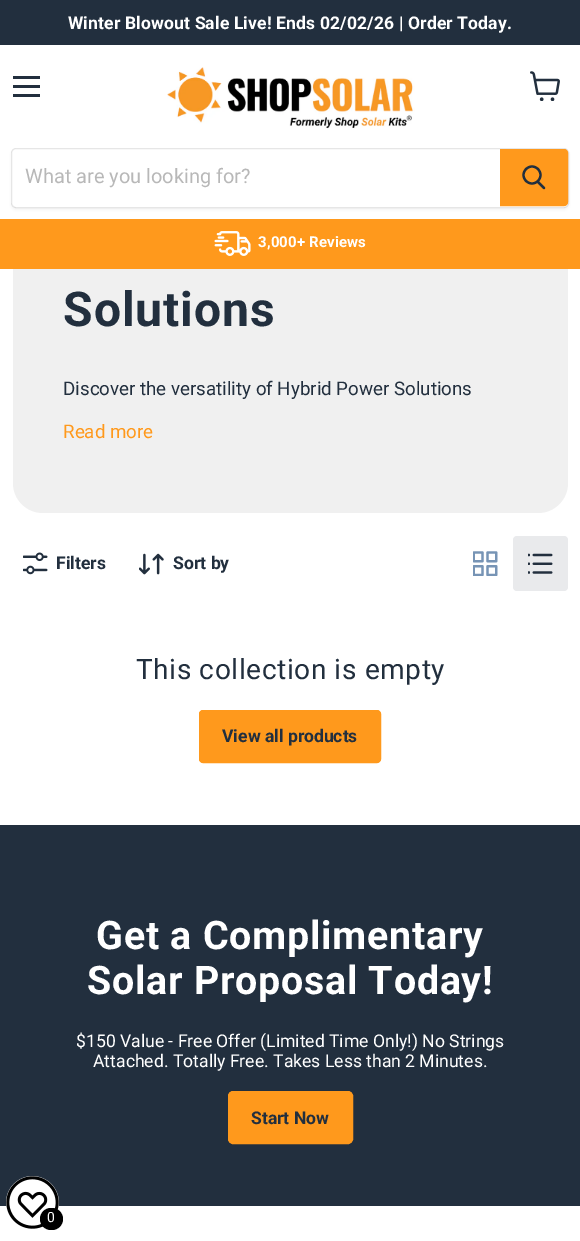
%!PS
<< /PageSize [580 1241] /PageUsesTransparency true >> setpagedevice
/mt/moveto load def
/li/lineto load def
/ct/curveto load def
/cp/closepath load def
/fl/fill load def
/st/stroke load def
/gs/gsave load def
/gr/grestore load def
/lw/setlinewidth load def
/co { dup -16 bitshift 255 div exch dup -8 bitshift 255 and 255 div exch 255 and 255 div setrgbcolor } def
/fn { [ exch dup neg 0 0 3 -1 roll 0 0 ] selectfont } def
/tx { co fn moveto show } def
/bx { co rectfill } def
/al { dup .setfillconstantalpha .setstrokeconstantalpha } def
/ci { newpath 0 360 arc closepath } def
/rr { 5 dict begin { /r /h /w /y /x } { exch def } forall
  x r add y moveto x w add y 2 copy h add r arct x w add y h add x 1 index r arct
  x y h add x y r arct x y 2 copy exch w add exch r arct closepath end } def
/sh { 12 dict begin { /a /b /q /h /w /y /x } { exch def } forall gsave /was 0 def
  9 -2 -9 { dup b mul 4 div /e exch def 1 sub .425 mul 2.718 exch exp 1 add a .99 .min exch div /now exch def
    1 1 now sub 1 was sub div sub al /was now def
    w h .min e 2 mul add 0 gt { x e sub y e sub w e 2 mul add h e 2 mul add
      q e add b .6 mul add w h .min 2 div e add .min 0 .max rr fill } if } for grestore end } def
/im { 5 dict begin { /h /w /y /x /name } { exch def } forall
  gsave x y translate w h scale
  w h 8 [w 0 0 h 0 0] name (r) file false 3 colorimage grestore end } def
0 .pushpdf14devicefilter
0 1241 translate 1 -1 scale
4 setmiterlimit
0 0 580 1241 16#FFFFFF bx
0 0 580 45 16#222F3E bx
16#F0F0F0 co
13 193 555 320 30 rr fl
13 193 555 26 16#FFFFFF bx
13 76 27 3 16#222F3E bx
13 85 27 3 16#222F3E bx
13 94 27 3 16#222F3E bx
(media/1.raw) 530 71 30 30 im
(media/2.raw) 167 67 248 62 im
gs
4 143 mt 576 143 li 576 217 li 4 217 li cp 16 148 mt 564 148 li 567 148 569 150 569 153 ct 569 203 li 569 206 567 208 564 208 ct 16 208 li 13 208 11 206 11 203 ct 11 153 li 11 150 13 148 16 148 ct cp eoclip newpath
16#808080 co
11 150 558 60 5 2 .11 sh
gr
0.2 al
16#808080 co
11.5 148.5 557 59 4.5 rr st
1 al
16#FF991C co
500.5 149.5 mt 564 149.5 li 566 149.5 567.5 151 567.5 153 ct 567.5 202 li 567.5 204 566 205.5 564 205.5 ct 500.5 205.5 li cp gs fl gr
st
16#222F3E co
2.2 lw
1 setlinecap
544 188 mt 538 182 li st
0 setlinecap
532 175 8.5 ci st
0 219 580 50 16#FF991C bx
(media/3.raw) 214 231 37 25 im
(media/4.raw) 23 552 25 23 im
(media/5.raw) 139 553 25 22 im
(media/6.raw) 473 551 25 25 im
16#E9EAEC co
513 536 55 55 4 rr fl
(media/7.raw) 528 553 25 21 im
16#FF991C co
199.5 710.5 181 52 3.5 rr gs fl gr
1 lw
st
0 825 580 381 16#222F3E bx
16#FF991C co
228.5 1091.5 124 52 4.5 rr gs fl gr
st
16#FFFFFF co
32.5 1202.5 26.5 ci fl
(media/8.raw) 6 1176 53 53 im
16#000000 co
40 1208 23 22 11 rr fl
/Roboto-Bold 17.5 fn
16#FFFFFF co
68 29 mt .15 0 (Winter Blowout Sale Live) ashow
/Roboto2-Bold 17.5 fn
267 29 mt .15 0 (!) ashow
/Roboto-Bold 17.5 fn
276 29 mt .15 0 (Ends 02) ashow
/Roboto2-Bold 17.5 fn
340 29 mt .15 0 (/) ashow
/Roboto-Bold 17.5 fn
347 29 mt .15 0 (02) ashow
/Roboto2-Bold 17.5 fn
367 29 mt .15 0 (/) ashow
/Roboto-Bold 17.5 fn
374 29 mt .15 0 (26) ashow
/Roboto2-Bold 17.5 fn
399 29 mt .15 0 (|) ashow
/Roboto-Bold 17.5 fn
408 29 mt .15 0 (Order Today) ashow
/Roboto2-Bold 17.5 fn
507 29 mt .15 0 (.) ashow
(What are you looking for?) 25 183 /Roboto-Regular 20 16#B8B8B8 tx
/Roboto-Bold 15 fn
16#FFFFFF co
258 247 mt .15 0 (3 000) ashow
/Roboto2-Bold 15 fn
297 247 mt .15 0 (+) ashow
/Roboto-Bold 15 fn
309 247 mt .15 0 (Reviews) ashow
/Roboto2-Bold 15 fn
267 247 mt .15 0 (,) ashow
/Roboto-Bold 48 fn
16#222F3E co
63 326 mt 1 0 (Solutions) ashow
(Discover the versatility of Hybrid Power Solutions) 63 395 /Roboto-Regular 18.75 16#222F3E tx
(Read more) 63 438 /Roboto-Regular 18.75 16#FF991C tx
(Filters) 56 569 /Roboto-Bold 17.6 16#222F3E tx
(Sort by) 173 569 /Roboto-Bold 17.6 16#222F3E tx
/Roboto-Regular 28.1 fn
136 679 mt .6 0 (This collection is empty) ashow
(View all products) 222 742 /Roboto-Bold 17.5 16#222F3E tx
/Roboto-Bold 39.4 fn
16#FFFFFF co
96 949 mt .75 0 (Get a Complimentary) ashow
87 994 mt .75 0 (Solar Proposal Today) ashow
/Roboto2-Bold 39.4 fn
482 994 mt .75 0 (!) ashow
($150 Value - Free Offer \(Limited Time Only!\) No Strings) 76 1047 /Roboto-Regular 17.6 16#FFFFFF tx
(Attached. Totally Free. Takes Less than 2 Minutes.) 93 1067 /Roboto-Regular 17.6 16#FFFFFF tx
(Start Now) 251 1124 /Roboto-Bold 17.5 16#222F3E tx
(0) 47 1222 /Roboto-Regular 14 16#FFFFFF tx
.poppdf14devicefilter showpage
